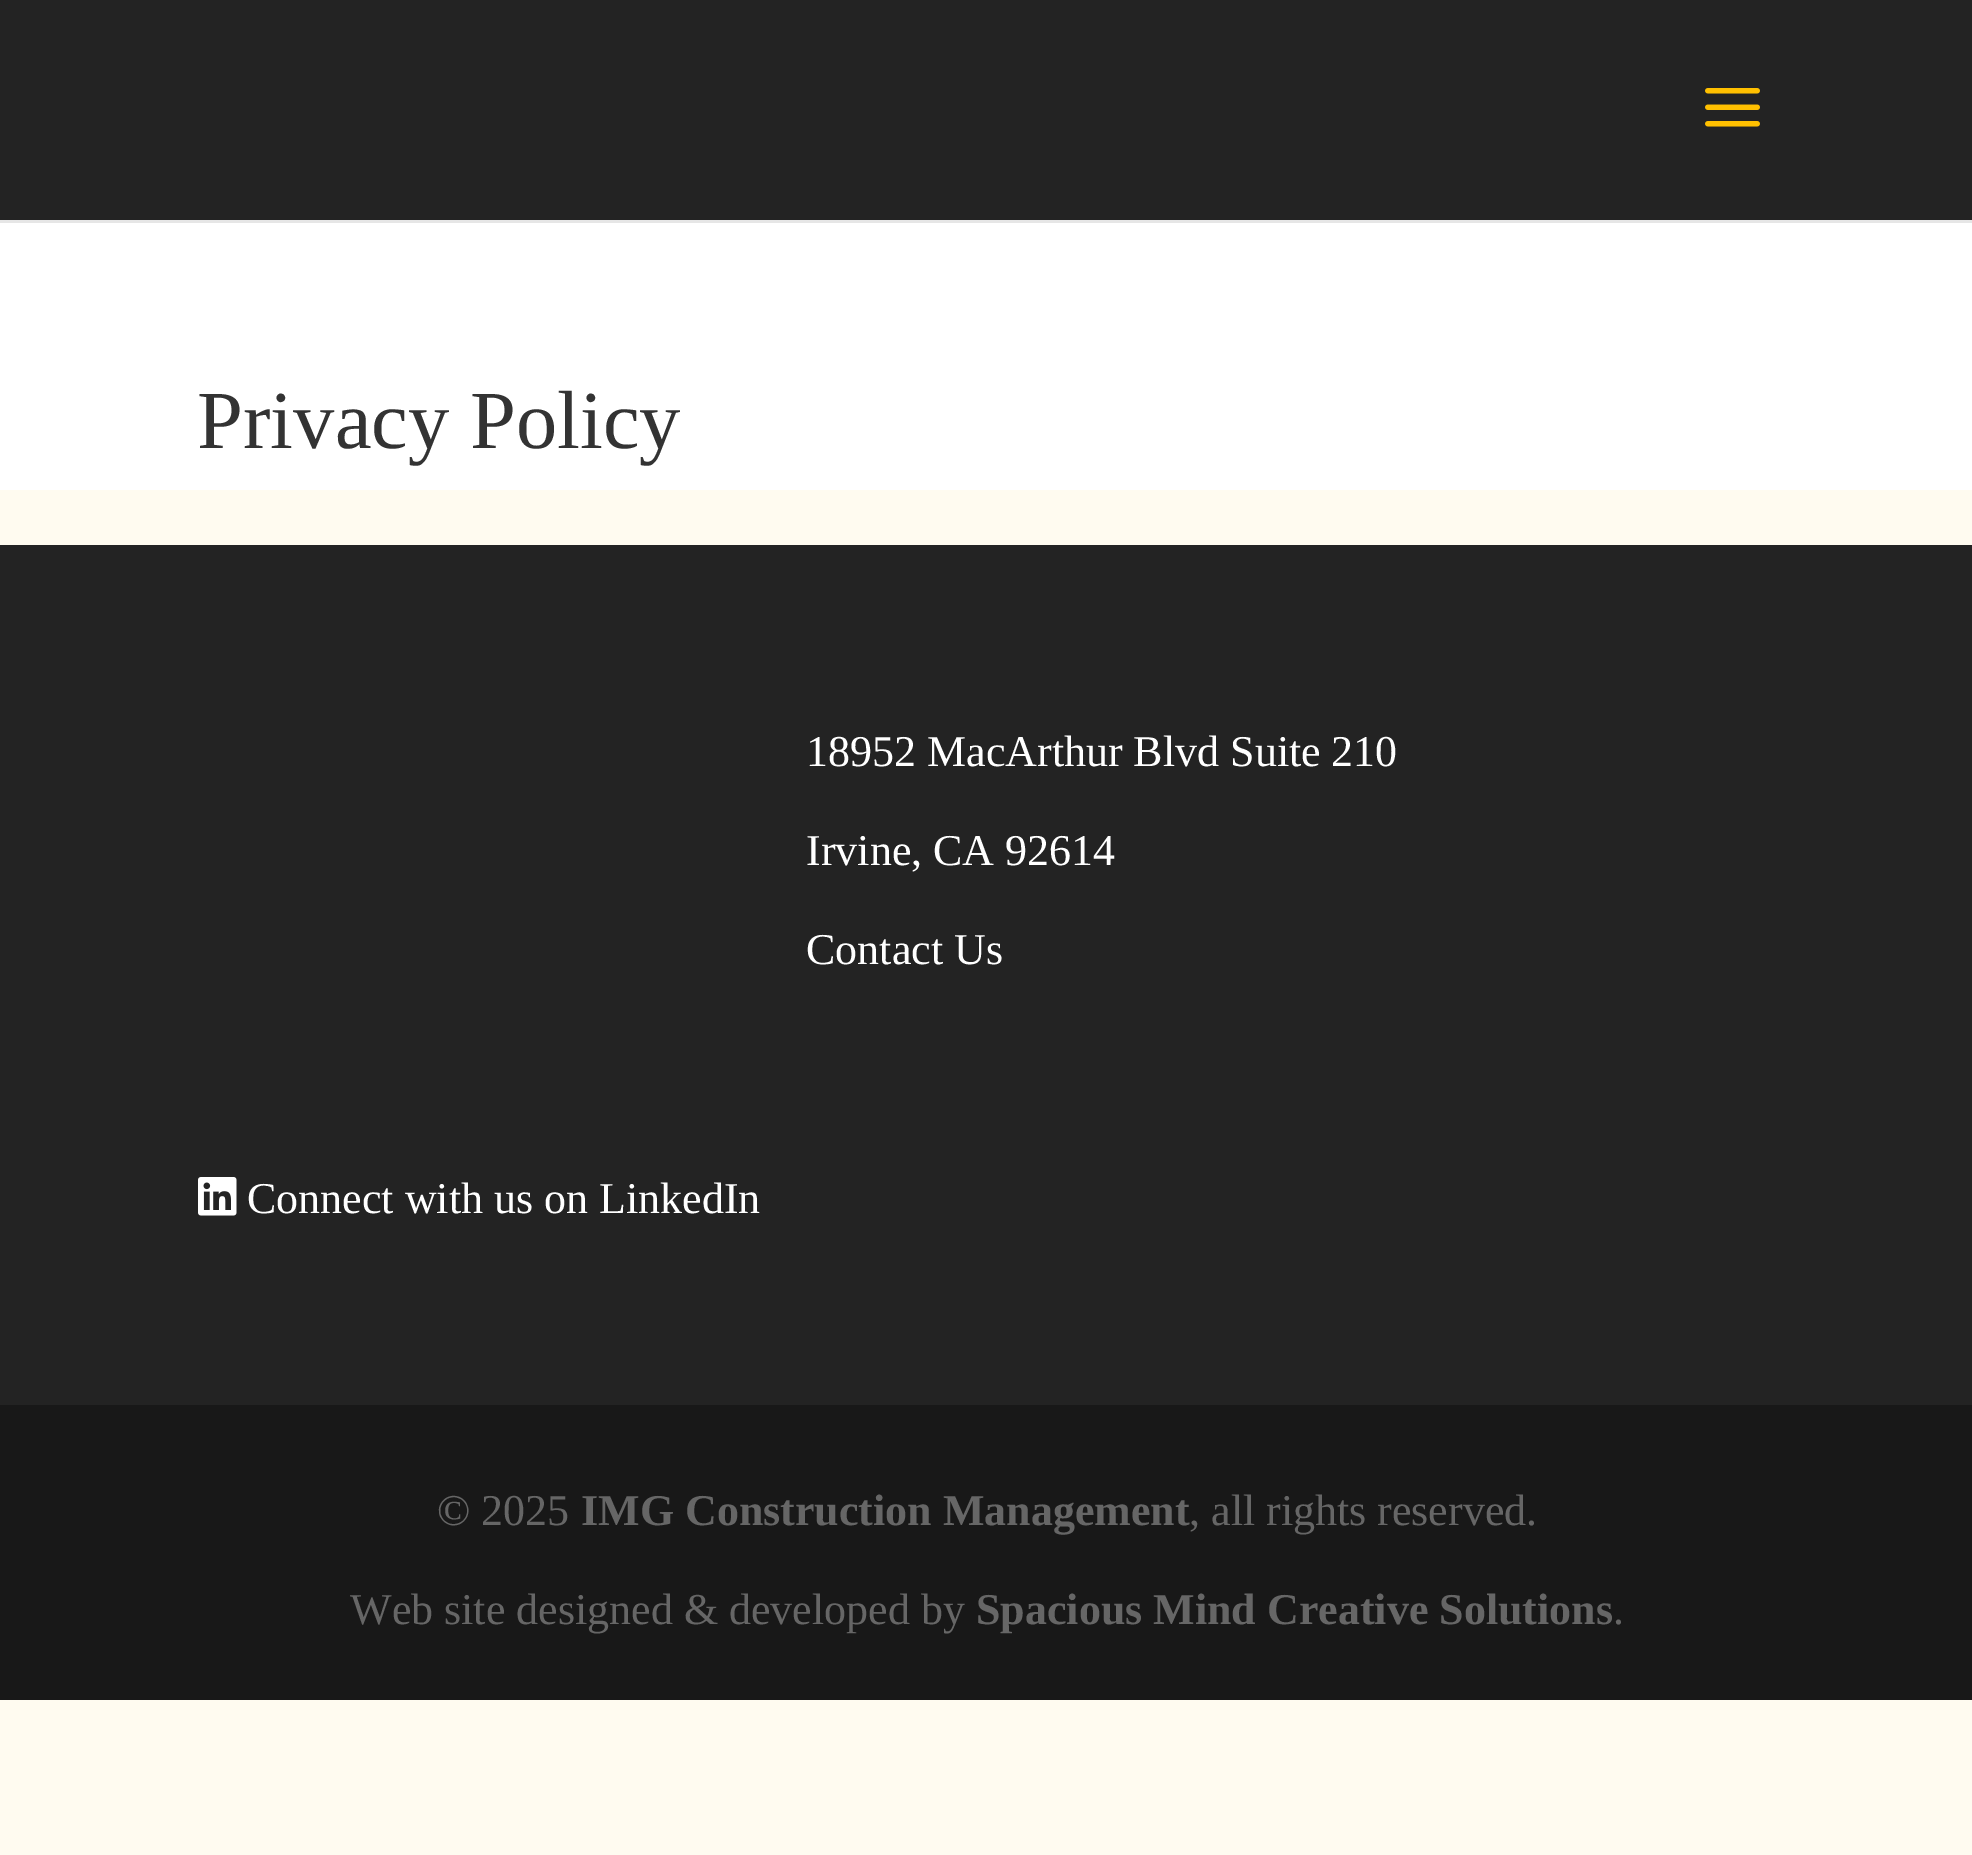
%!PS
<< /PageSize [1972 1855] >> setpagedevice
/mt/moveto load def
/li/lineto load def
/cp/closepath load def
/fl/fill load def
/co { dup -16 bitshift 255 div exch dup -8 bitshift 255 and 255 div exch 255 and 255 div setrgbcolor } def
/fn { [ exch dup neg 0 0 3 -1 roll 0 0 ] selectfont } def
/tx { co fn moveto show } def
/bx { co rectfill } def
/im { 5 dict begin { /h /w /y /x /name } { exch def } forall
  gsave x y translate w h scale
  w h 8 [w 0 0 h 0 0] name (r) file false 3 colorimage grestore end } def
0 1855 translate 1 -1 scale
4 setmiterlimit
0 0 1972 1855 16#FFFBF0 bx
16#E6E6E6 co
0 220 mt 0 223 li 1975 223 li 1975 3 li 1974 3 li 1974 220 li cp fl
0 0 1972 220 16#232323 bx
(media/1.raw) 1705 88 55 39 im
0 223 1972 267 16#FFFFFF bx
0 545 1972 860 16#232323 bx
(media/2.raw) 198 1177 39 39 im
0 1405 1972 295 16#181818 bx
(Privacy Policy) 197 448 /LiberationSerif-Regular 82.5 16#333333 tx
(18952 MacArthur Blvd Suite 210) 806 766 /LiberationSerif-Regular 44 16#FFFFFF tx
(Irvine, CA 92614) 806 865 /LiberationSerif-Regular 44 16#FFFFFF tx
(Contact Us) 806 964 /LiberationSerif-Regular 44 16#FFFFFF tx
(Connect with us on LinkedIn) 247 1213 /LiberationSerif-Regular 44 16#FFFFFF tx
(© 2025) 437 1525 /LiberationSerif-Regular 44 16#666666 tx
(IMG Construction Management) 581 1525 /LiberationSerif-Bold 44 16#666666 tx
(, all rights reserved.) 1189 1525 /LiberationSerif-Regular 44 16#666666 tx
(Web site designed & developed by) 350 1624 /LiberationSerif-Regular 44 16#666666 tx
(Spacious Mind Creative Solutions) 976 1624 /LiberationSerif-Bold 44 16#666666 tx
(.) 1613 1624 /LiberationSerif-Regular 44 16#666666 tx
showpage
